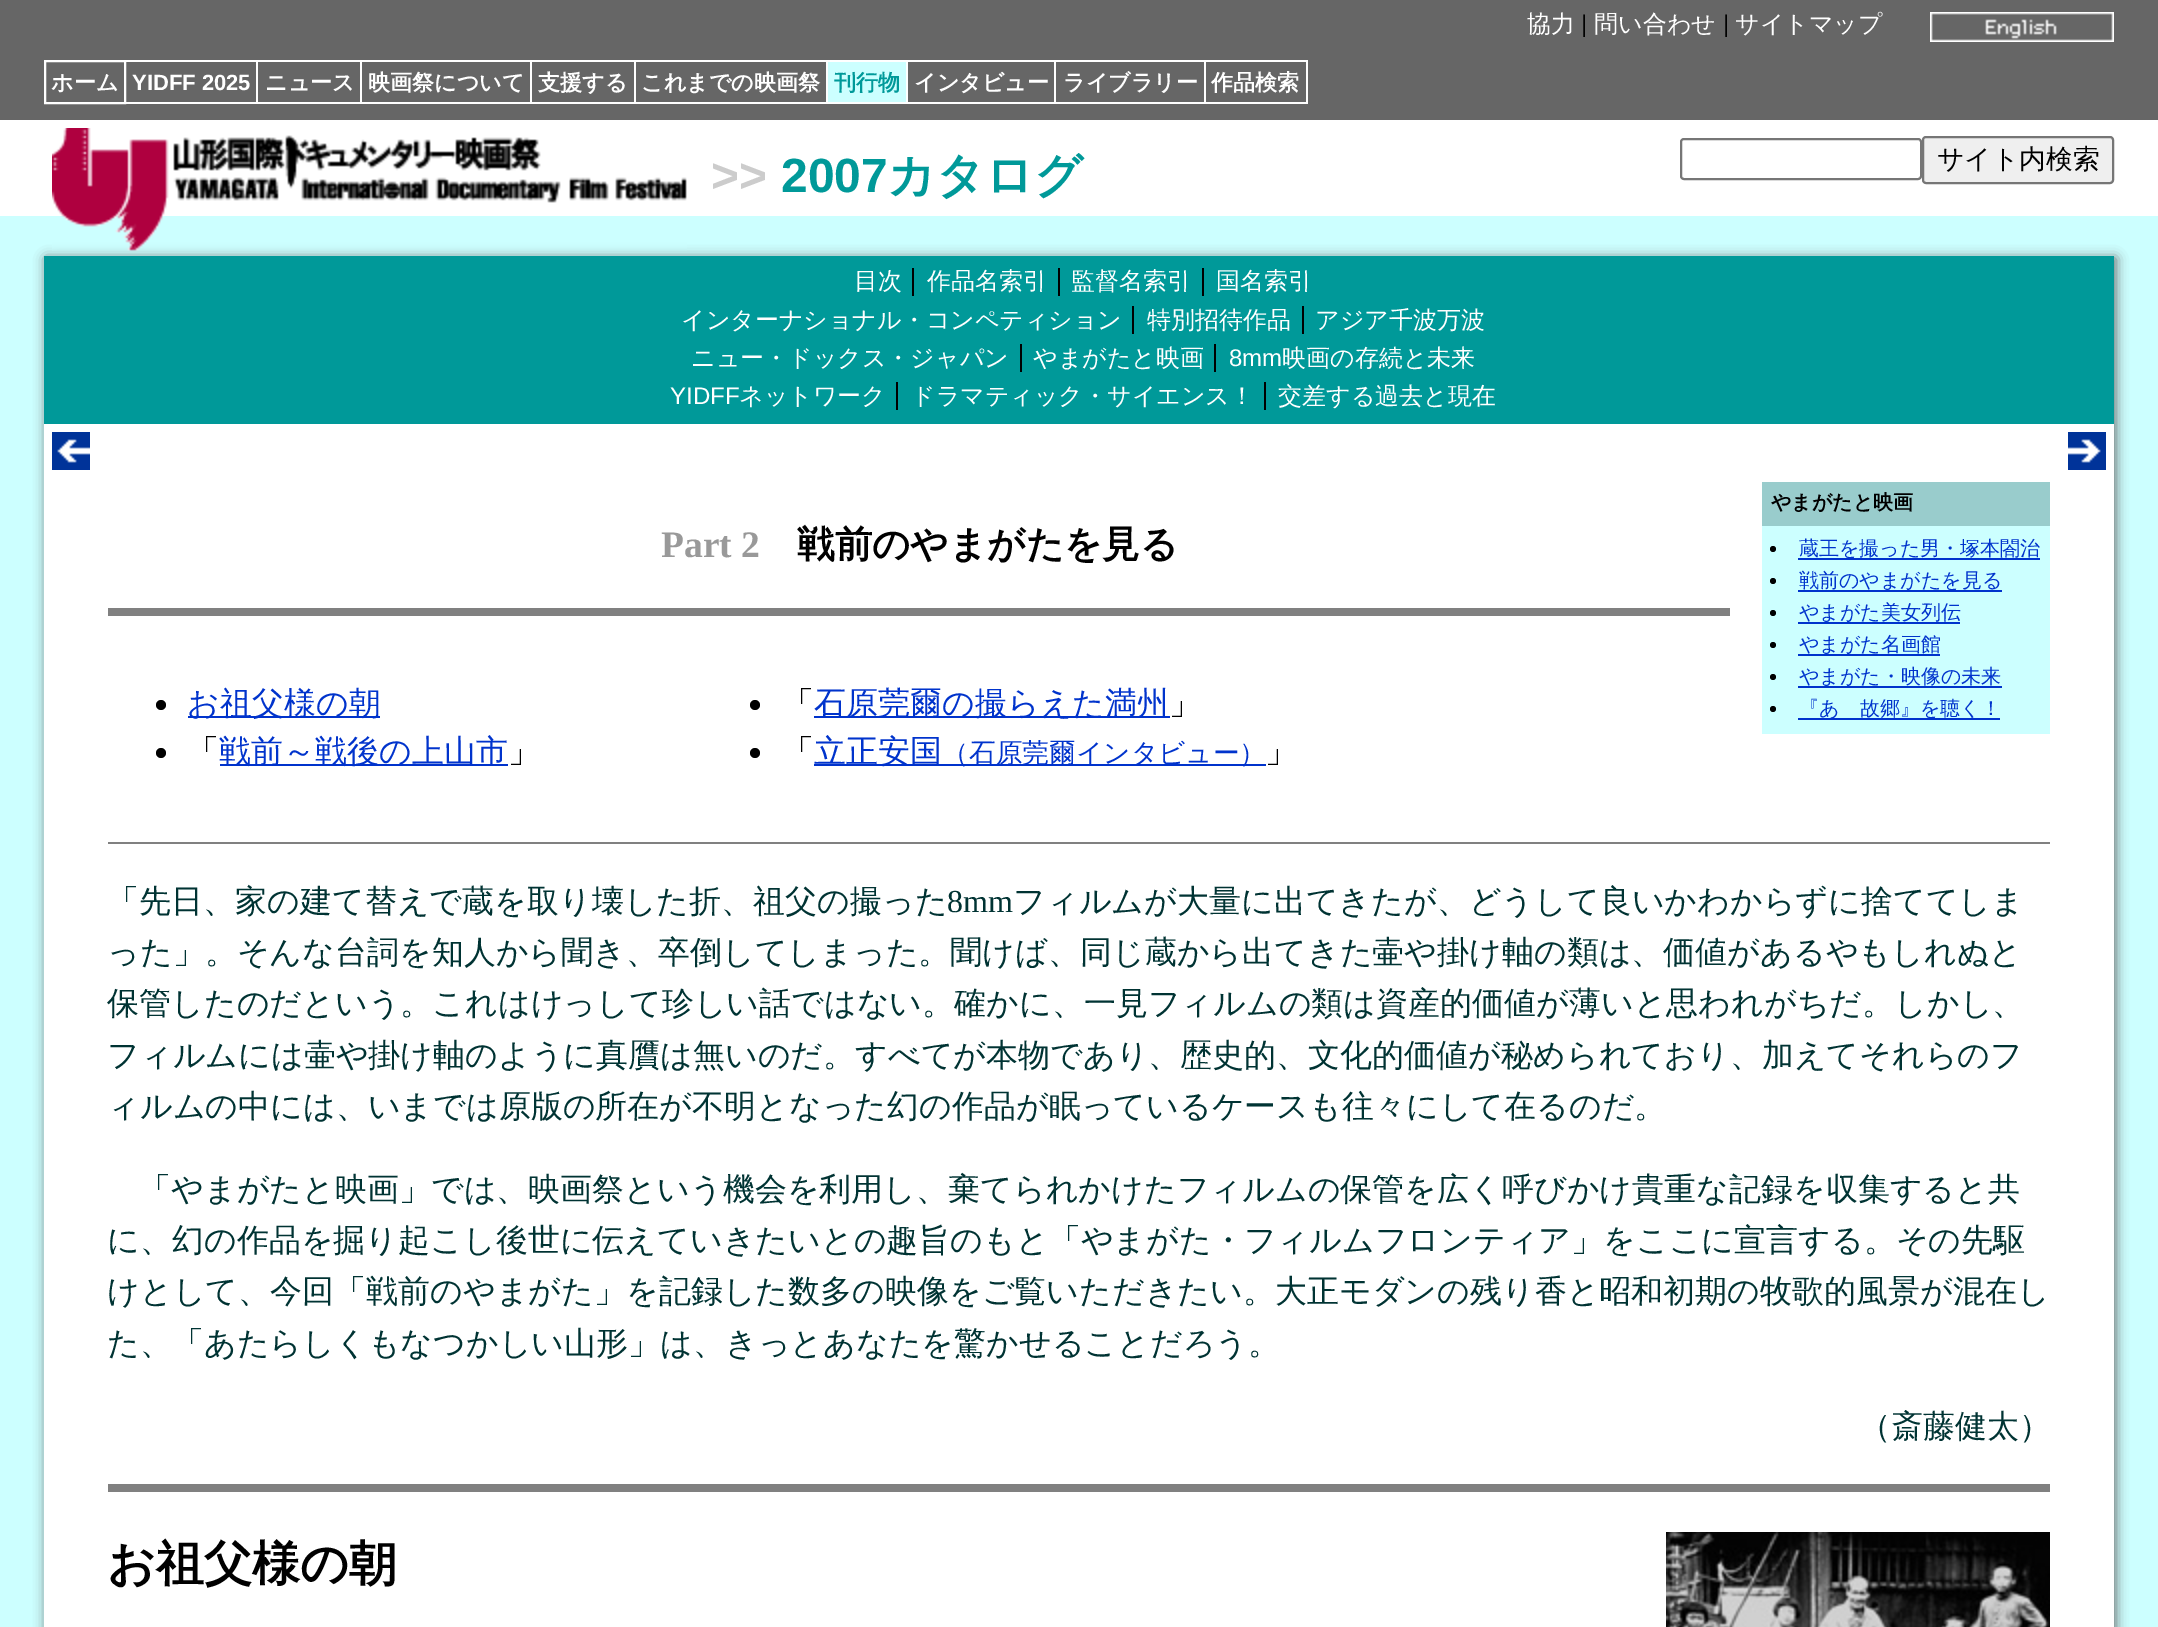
%!PS
<< /PageSize [2158 1627] /PageUsesTransparency true >> setpagedevice
/fl/fill load def
/st/stroke load def
/gs/gsave load def
/gr/grestore load def
/lw/setlinewidth load def
/co { dup -16 bitshift 255 div exch dup -8 bitshift 255 and 255 div exch 255 and 255 div setrgbcolor } def
/fn { [ exch dup neg 0 0 3 -1 roll 0 0 ] selectfont } def
/tx { co fn moveto show } def
/bx { co rectfill } def
/al { dup .setfillconstantalpha .setstrokeconstantalpha } def
/ci { newpath 0 360 arc closepath } def
/rr { 5 dict begin { /r /h /w /y /x } { exch def } forall
  x r add y moveto x w add y 2 copy h add r arct x w add y h add x 1 index r arct
  x y h add x y r arct x y 2 copy exch w add exch r arct closepath end } def
/sh { 12 dict begin { /a /b /q /h /w /y /x } { exch def } forall gsave /was 0 def
  9 -2 -9 { dup b mul 4 div /e exch def 1 sub .425 mul 2.718 exch exp 1 add a .99 .min exch div /now exch def
    1 1 now sub 1 was sub div sub al /was now def
    w h .min e 2 mul add 0 gt { x e sub y e sub w e 2 mul add h e 2 mul add
      q e add b .6 mul add w h .min 2 div e add .min 0 .max rr fill } if } for grestore end } def
/im { 5 dict begin { /h /w /y /x /name } { exch def } forall
  gsave x y translate w h scale
  w h 8 [w 0 0 h 0 0] name (r) file false 3 colorimage grestore end } def
0 .pushpdf14devicefilter
0 1627 translate 1 -1 scale
4 setmiterlimit
0 0 2158 1627 16#CCFFFF bx
0 0 2158 120 16#666666 bx
(media/1.raw) 1930 12 184 30 im
16#FFFFFF co
2 lw
45 61 80 42 rectstroke
126 60 1182 2 16#FFFFFF bx
256 60 2 44 16#FFFFFF bx
126 102 132 2 16#FFFFFF bx
360 60 2 44 16#FFFFFF bx
258 102 104 2 16#FFFFFF bx
530 60 2 44 16#FFFFFF bx
362 102 170 2 16#FFFFFF bx
634 60 2 44 16#FFFFFF bx
532 102 104 2 16#FFFFFF bx
826 60 2 44 16#FFFFFF bx
636 102 192 2 16#FFFFFF bx
828 62 78 40 16#CCFFFF bx
906 60 2 44 16#FFFFFF bx
828 102 80 2 16#FFFFFF bx
1054 60 2 44 16#FFFFFF bx
908 102 148 2 16#FFFFFF bx
1204 60 2 44 16#FFFFFF bx
1056 102 150 2 16#FFFFFF bx
1306 60 2 44 16#FFFFFF bx
1206 102 102 2 16#FFFFFF bx
0 120 2158 96 16#FFFFFF bx
16#666666 co
46 258 2070 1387 0 6 1 sh
(media/2.raw) 52 128 635 123 im
16#767676 co
1681 139 240 40 3 rr st
16#EFEFEF co
1923 137 190 46 3 rr gs fl gr
16#767676 co
st
44 256 2070 168 16#009999 bx
912 268 2 28 16#000000 bx
1058 268 2 28 16#000000 bx
1202 268 2 28 16#000000 bx
1132 306 2 28 16#000000 bx
1302 306 2 28 16#000000 bx
1020 344 2 28 16#000000 bx
1214 344 2 28 16#000000 bx
896 382 2 28 16#000000 bx
1264 382 2 28 16#000000 bx
44 424 2070 1203 16#FFFFFF bx
(media/3.raw) 52 432 38 38 im
(media/4.raw) 2068 432 38 38 im
1762 482 288 44 16#99CCCC bx
1762 526 288 208 16#CCFFFF bx
16#000000 co
1773 549 3 ci fl
1798 558 242 2 16#0033CC bx
16#000000 co
1773 581 3 ci fl
1798 590 204 2 16#0033CC bx
16#000000 co
1773 613 3 ci fl
1798 622 162 2 16#0033CC bx
16#000000 co
1773 645 3 ci fl
1798 654 142 2 16#0033CC bx
16#000000 co
1773 677 3 ci fl
1798 686 204 2 16#0033CC bx
16#000000 co
1773 709 3 ci fl
1798 718 202 2 16#0033CC bx
108 608 1622 8 16#808080 bx
16#000000 co
161 705 5 ci fl
188 716 192 2 16#0033CC bx
16#000000 co
161 753 5 ci fl
220 764 288 2 16#0033CC bx
16#000000 co
755 705 5 ci fl
814 716 356 2 16#0033CC bx
16#000000 co
755 753 5 ci fl
814 764 452 2 16#0033CC bx
108 842 1942 2 16#808080 bx
108 1484 1942 8 16#808080 bx
(media/5.raw) 1666 1532 384 95 im
(協力) 1527 32 /WenQuanYiZenHei-Medium 24 16#FFFFFF tx
(|) 1581 32 /LiberationSans-Regular 24 16#000000 tx
(問い合わせ) 1594 32 /WenQuanYiZenHei-Medium 24 16#FFFFFF tx
(|) 1723 32 /LiberationSans-Regular 24 16#000000 tx
(サイトマップ) 1735 32 /WenQuanYiZenHei-Medium 24 16#FFFFFF tx
(ホーム) 51 90 /WenQuanYiZenHei-Bold 22 16#FFFFFF tx
(YIDFF 2025) 132 90 /LiberationSans-Bold 22 16#FFFFFF tx
(ニュース) 265 90 /WenQuanYiZenHei-Bold 22 16#FFFFFF tx
(映画祭について) 368 90 /WenQuanYiZenHei-Bold 22 16#FFFFFF tx
(支援する) 538 90 /WenQuanYiZenHei-Bold 22 16#FFFFFF tx
(これまでの映画祭) 641 90 /WenQuanYiZenHei-Bold 22 16#FFFFFF tx
(刊行物) 834 90 /WenQuanYiZenHei-Bold 22 16#009999 tx
(インタビュー) 914 90 /WenQuanYiZenHei-Bold 22 16#FFFFFF tx
(ライブラリー) 1063 90 /WenQuanYiZenHei-Bold 22 16#FFFFFF tx
(作品検索) 1211 90 /WenQuanYiZenHei-Bold 22 16#FFFFFF tx
(>>) 711 192 /LiberationSans-Bold 48 16#CCCCCC tx
(2007) 781 192 /LiberationSans-Bold 48 16#009999 tx
(カタログ) 887 192 /WenQuanYiZenHei-Bold 48 16#009999 tx
(サイト内検索) 1937 168 /WenQuanYiZenHei-Medium 26.75 16#000000 tx
(目次) 854 289 /WenQuanYiZenHei-Medium 24 16#FFFFFF tx
(作品名索引) 927 289 /WenQuanYiZenHei-Medium 24 16#FFFFFF tx
(監督名索引) 1071 289 /WenQuanYiZenHei-Medium 24 16#FFFFFF tx
(国名索引) 1216 289 /WenQuanYiZenHei-Medium 24 16#FFFFFF tx
(インターナショナル・コンペティション) 681 328 /WenQuanYiZenHei-Medium 24 16#FFFFFF tx
(特別招待作品) 1147 328 /WenQuanYiZenHei-Medium 24 16#FFFFFF tx
(アジア千波万波) 1315 328 /WenQuanYiZenHei-Medium 24 16#FFFFFF tx
(ニュー・ドックス・ジャパン) 691 366 /WenQuanYiZenHei-Medium 24 16#FFFFFF tx
(やまがたと映画) 1033 366 /WenQuanYiZenHei-Medium 24 16#FFFFFF tx
(8mm) 1229 366 /LiberationSans-Regular 24 16#FFFFFF tx
(映画の存続と未来) 1282 366 /WenQuanYiZenHei-Medium 24 16#FFFFFF tx
(YIDFF) 670 404 /LiberationSans-Regular 24 16#FFFFFF tx
(ネットワーク) 739 404 /WenQuanYiZenHei-Medium 24 16#FFFFFF tx
(ドラマティック・サイエンス！) 911 404 /WenQuanYiZenHei-Medium 24 16#FFFFFF tx
(交差する過去と現在) 1278 404 /WenQuanYiZenHei-Medium 24 16#FFFFFF tx
(Part 2) 661 557 /LiberationSerif-Bold 37.5 16#999999 tx
(戦前のやまがたを見る) 797 557 /WenQuanYiZenHei-Bold 37.5 16#000000 tx
(やまがたと映画) 1771 509 /WenQuanYiZenHei-Bold 20 16#000000 tx
(蔵王を撮った男・塚本閤治) 1799 555 /WenQuanYiZenHei-Medium 20 16#0033CC tx
(戦前のやまがたを見る) 1799 587 /WenQuanYiZenHei-Medium 20 16#0033CC tx
(やまがた美女列伝) 1799 619 /WenQuanYiZenHei-Medium 20 16#0033CC tx
(やまがた名画館) 1799 651 /WenQuanYiZenHei-Medium 20 16#0033CC tx
(やまがた・映像の未来) 1799 683 /WenQuanYiZenHei-Medium 20 16#0033CC tx
(『あゝ故郷』を聴く！) 1799 715 /WenQuanYiZenHei-Medium 20 16#0033CC tx
(お祖父様の朝) 187 714 /WenQuanYiZenHei-Medium 32 16#0033CC tx
(「) 187 762 /WenQuanYiZenHei-Medium 32 16#000000 tx
(戦前～戦後の上山市) 219 762 /WenQuanYiZenHei-Medium 32 16#0033CC tx
(」) 508 762 /WenQuanYiZenHei-Medium 32 16#000000 tx
(「) 782 714 /WenQuanYiZenHei-Medium 32 16#000000 tx
(石原莞爾の撮らえた満州) 814 714 /WenQuanYiZenHei-Medium 32 16#0033CC tx
(」) 1169 714 /WenQuanYiZenHei-Medium 32 16#000000 tx
(「) 782 762 /WenQuanYiZenHei-Medium 32 16#000000 tx
(立正安国) 814 762 /WenQuanYiZenHei-Medium 32 16#0033CC tx
(（石原莞爾インタビュー）) 942 762 /WenQuanYiZenHei-Medium 26.75 16#0033CC tx
(」) 1265 762 /WenQuanYiZenHei-Medium 32 16#000000 tx
(「先日、家の建て替えで蔵を取り壊した折、祖父の撮った) 107 912 /WenQuanYiZenHei-Medium 32 16#003333 tx
(8mm) 947 912 /LiberationSerif-Regular 32 16#003333 tx
(フィルムが大量に出てきたが、どうして良いかわからずに捨ててしま) 1013 912 /WenQuanYiZenHei-Medium 32 16#003333 tx
(った」。そんな台詞を知人から聞き、卒倒してしまった。聞けば、同じ蔵から出てきた壷や掛け軸の類は、価値があるやもしれぬと) 107 963 /WenQuanYiZenHei-Medium 32 16#003333 tx
(保管したのだという。これはけっして珍しい話ではない。確かに、一見フィルムの類は資産的価値が薄いと思われがちだ。しかし、) 107 1014 /WenQuanYiZenHei-Medium 32 16#003333 tx
(フィルムには壷や掛け軸のように真贋は無いのだ。すべてが本物であり、歴史的、文化的価値が秘められており、加えてそれらのフ) 107 1066 /WenQuanYiZenHei-Medium 32 16#003333 tx
(ィルムの中には、いまでは原版の所在が不明となった幻の作品が眠っているケースも往々にして在るのだ。) 107 1117 /WenQuanYiZenHei-Medium 32 16#003333 tx
(「やまがたと映画」では、映画祭という機会を利用し、棄てられかけたフィルムの保管を広く呼びかけ貴重な記録を収集すると共) 139 1200 /WenQuanYiZenHei-Medium 32 16#003333 tx
(に、幻の作品を掘り起こし後世に伝えていきたいとの趣旨のもと「やまがた・フィルムフロンティア」をここに宣言する。その先駆) 107 1251 /WenQuanYiZenHei-Medium 32 16#003333 tx
(けとして、今回「戦前のやまがた」を記録した数多の映像をご覧いただきたい。大正モダンの残り香と昭和初期の牧歌的風景が混在し) 107 1302 /WenQuanYiZenHei-Medium 32 16#003333 tx
(た、「あたらしくもなつかしい山形」は、きっとあなたを驚かせることだろう。) 107 1354 /WenQuanYiZenHei-Medium 32 16#003333 tx
(（斎藤健太）) 1859 1437 /WenQuanYiZenHei-Medium 32 16#003333 tx
(お祖父様の朝) 107 1580 /WenQuanYiZenHei-Bold 48 16#000000 tx
.poppdf14devicefilter showpage
